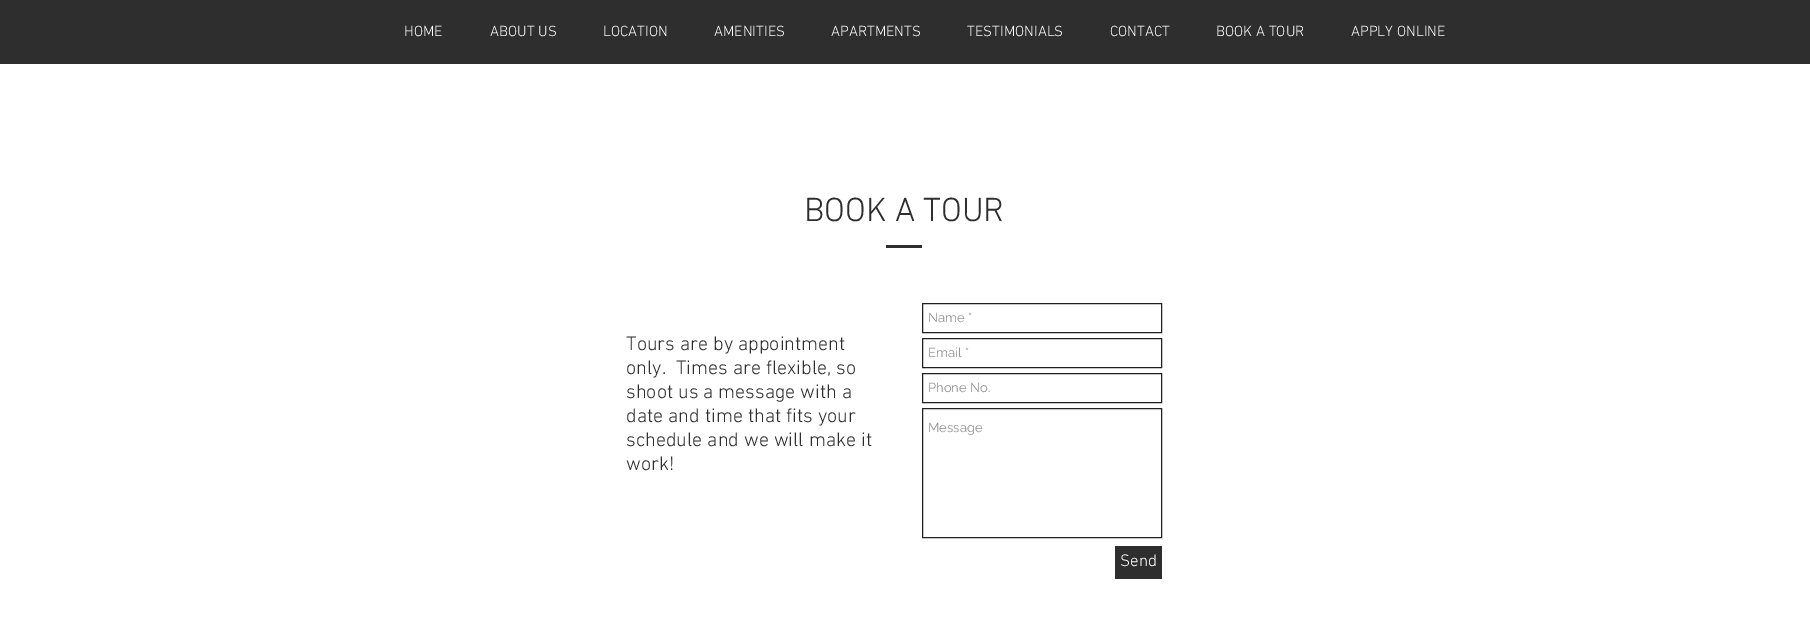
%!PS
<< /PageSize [1810 640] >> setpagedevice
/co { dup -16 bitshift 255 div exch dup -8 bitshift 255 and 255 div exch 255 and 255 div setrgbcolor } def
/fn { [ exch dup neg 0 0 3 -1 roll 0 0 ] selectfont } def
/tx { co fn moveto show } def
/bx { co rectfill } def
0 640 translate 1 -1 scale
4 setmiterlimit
0 0 1810 640 16#FFFFFF bx
0 0 1810 64 16#2F2E2E bx
886 245 36 3 16#2F2E2E bx
16#212121 co
922.5 303.5 239 29 rectstroke
922.5 338.5 239 29 rectstroke
922.5 373.5 239 29 rectstroke
922.5 408.5 239 129 rectstroke
1115 546 47 33 16#2F2E2E bx
(HOME) 404 36 /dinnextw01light-Light 15 16#FFFFFF tx
(ABOUT US) 490 36 /dinnextw01light-Light 15 16#FFFFFF tx
(LOCATION) 603 36 /dinnextw01light-Light 15 16#FFFFFF tx
(AMENITIES) 714 36 /dinnextw01light-Light 15 16#FFFFFF tx
(APARTMENTS) 831 36 /dinnextw01light-Light 15 16#FFFFFF tx
(TESTIMONIALS) 967 36 /dinnextw01light-Light 15 16#FFFFFF tx
(CONTACT) 1110 36 /dinnextw01light-Light 15 16#FFFFFF tx
(BOOK A TOUR) 1216 36 /dinnextw01light-Light 15 16#FFFFFF tx
(APPLY ONLINE) 1351 36 /dinnextw01light-Light 15 16#FFFFFF tx
(BOOK A TOUR) 804 221 /dinnextw01light-Light 34 16#2F2E2E tx
(Tours are by appointment) 626 350 /dinnextw01light-Light 20 16#2F2E2E tx
(only.  Times are flexible, so) 626 374 /dinnextw01light-Light 20 16#2F2E2E tx
(shoot us a message with a) 626 398 /dinnextw01light-Light 20 16#2F2E2E tx
(date and time that fits your) 626 422 /dinnextw01light-Light 20 16#2F2E2E tx
(schedule and we will make it) 626 446 /dinnextw01light-Light 20 16#2F2E2E tx
(work!) 626 470 /dinnextw01light-Light 20 16#2F2E2E tx
(Name *) 928 322 /Raleway-Regular 13 16#919191 tx
(Email *) 928 357 /Raleway-Regular 13 16#919191 tx
(Phone No.) 928 392 /Raleway-Regular 13 16#919191 tx
(Message) 928 432 /Raleway-Regular 13 16#919191 tx
(Send) 1120 566 /dinnextw01light-Light 17 16#FFFFFF tx
showpage
